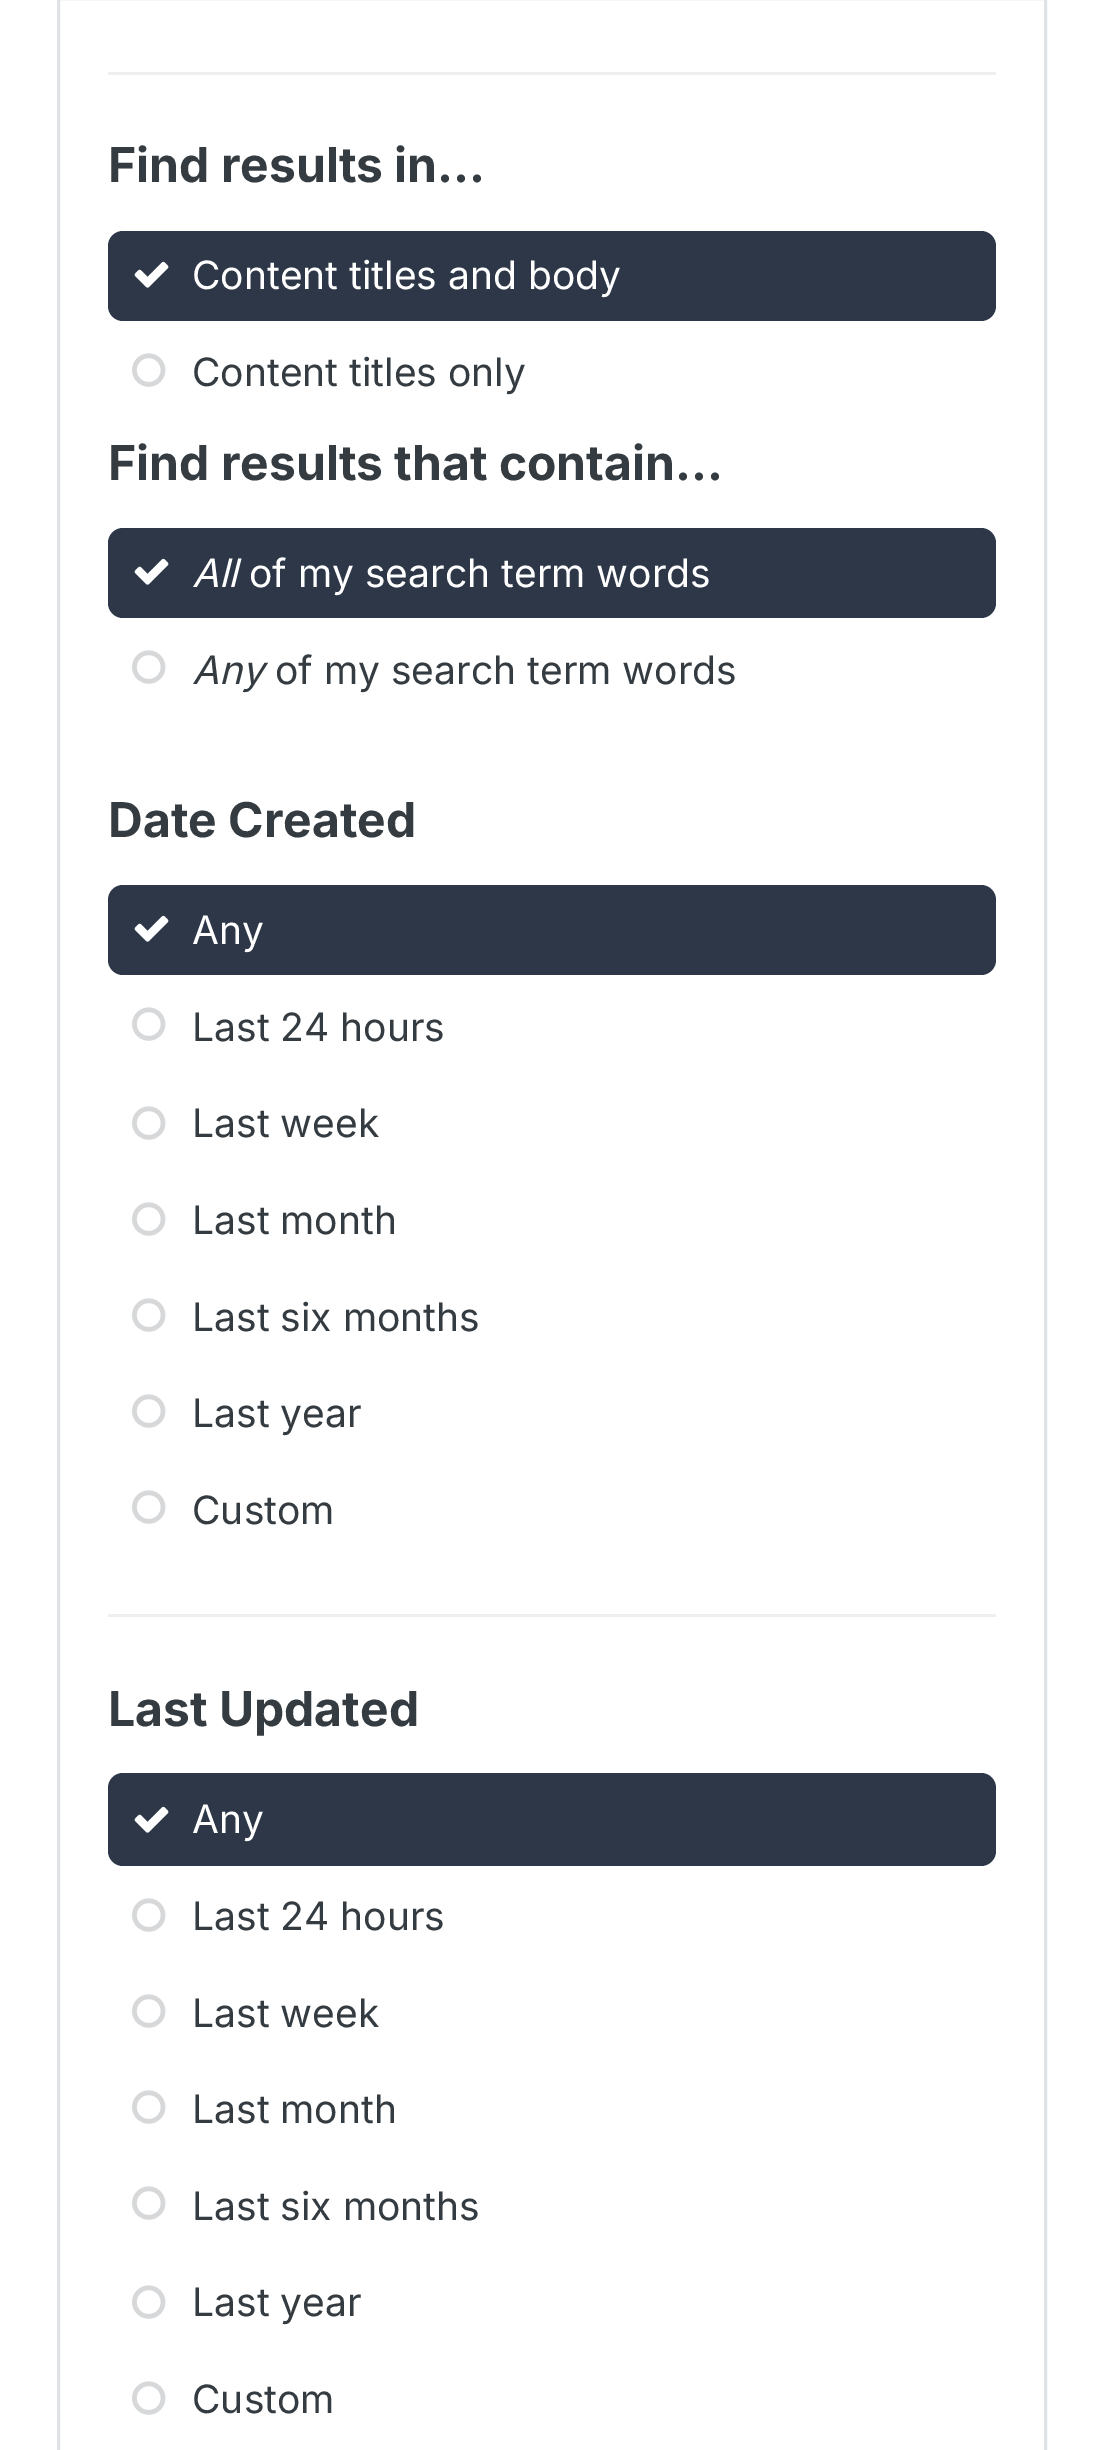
%!PS
<< /PageSize [1104 2450] >> setpagedevice
/fl/fill load def
/lw/setlinewidth load def
/co { dup -16 bitshift 255 div exch dup -8 bitshift 255 and 255 div exch 255 and 255 div setrgbcolor } def
/fn { [ exch dup neg 0 0 3 -1 roll 0 0 ] selectfont } def
/tx { co fn moveto show } def
/bx { co rectfill } def
/rr { 5 dict begin { /r /h /w /y /x } { exch def } forall
  x r add y moveto x w add y 2 copy h add r arct x w add y h add x 1 index r arct
  x y h add x y r arct x y 2 copy exch w add exch r arct closepath end } def
/im { 5 dict begin { /h /w /y /x /name } { exch def } forall
  gsave x y translate w h scale
  w h 8 [w 0 0 h 0 0] name (r) file false 3 colorimage grestore end } def
0 2450 translate 1 -1 scale
4 setmiterlimit
0 0 1104 2450 16#FFFFFF bx
16#DFE2E7 co
3 lw
58.5 -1.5 987 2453 rectstroke
108 72 888 3 16#EFEFF0 bx
16#2D3748 co
108 231 888 90 15 rr fl
(media/1.raw) 134 261 35 27 im
(media/2.raw) 132 353 34 34 im
108 528 888 90 15 rr fl
(media/1.raw) 134 558 35 27 im
(media/2.raw) 132 650 34 34 im
108 885 888 90 15 rr fl
(media/1.raw) 134 915 35 27 im
(media/2.raw) 132 1007 34 34 im
(media/2.raw) 132 1106 34 34 im
(media/2.raw) 132 1202 34 34 im
(media/2.raw) 132 1298 34 34 im
(media/2.raw) 132 1394 34 34 im
(media/2.raw) 132 1490 34 34 im
108 1614 888 3 16#EFEFF0 bx
16#2D3748 co
108 1773 888 93 15 rr fl
(media/1.raw) 134 1806 35 27 im
(media/2.raw) 132 1898 34 34 im
(media/2.raw) 132 1994 34 34 im
(media/2.raw) 132 2090 34 34 im
(media/2.raw) 132 2186 34 34 im
(media/2.raw) 132 2285 34 34 im
(media/2.raw) 132 2381 34 34 im
(Find results in...) 108 182 /Inter-Bold 48 16#353C41 tx
(Content titles and body) 192 289 /Inter-Regular 39 16#FFFFFF tx
(Content titles only) 192 386 /Inter-Regular 39 16#353C41 tx
(Find results that contain...) 108 480 /Inter-Bold 48 16#353C41 tx
(All) 192 587 /Inter-Italic 39 16#FFFFFF tx
(of my search term words) 249 587 /Inter-Regular 39 16#FFFFFF tx
(Any) 192 684 /Inter-Italic 39 16#353C41 tx
(of my search term words) 275 684 /Inter-Regular 39 16#353C41 tx
(Date Created) 108 837 /Inter-Bold 48 16#353C41 tx
(Any) 192 944 /Inter-Regular 39 16#FFFFFF tx
(Last 24 hours) 192 1041 /Inter-Regular 39 16#353C41 tx
(Last week) 192 1137 /Inter-Regular 39 16#353C41 tx
(Last month) 192 1234 /Inter-Regular 39 16#353C41 tx
(Last six months) 192 1331 /Inter-Regular 39 16#353C41 tx
(Last year) 192 1427 /Inter-Regular 39 16#353C41 tx
(Custom) 192 1524 /Inter-Regular 39 16#353C41 tx
(Last Updated) 108 1726 /Inter-Bold 48 16#353C41 tx
(Any) 192 1833 /Inter-Regular 39 16#FFFFFF tx
(Last 24 hours) 192 1930 /Inter-Regular 39 16#353C41 tx
(Last week) 192 2027 /Inter-Regular 39 16#353C41 tx
(Last month) 192 2123 /Inter-Regular 39 16#353C41 tx
(Last six months) 192 2220 /Inter-Regular 39 16#353C41 tx
(Last year) 192 2316 /Inter-Regular 39 16#353C41 tx
(Custom) 192 2413 /Inter-Regular 39 16#353C41 tx
showpage
